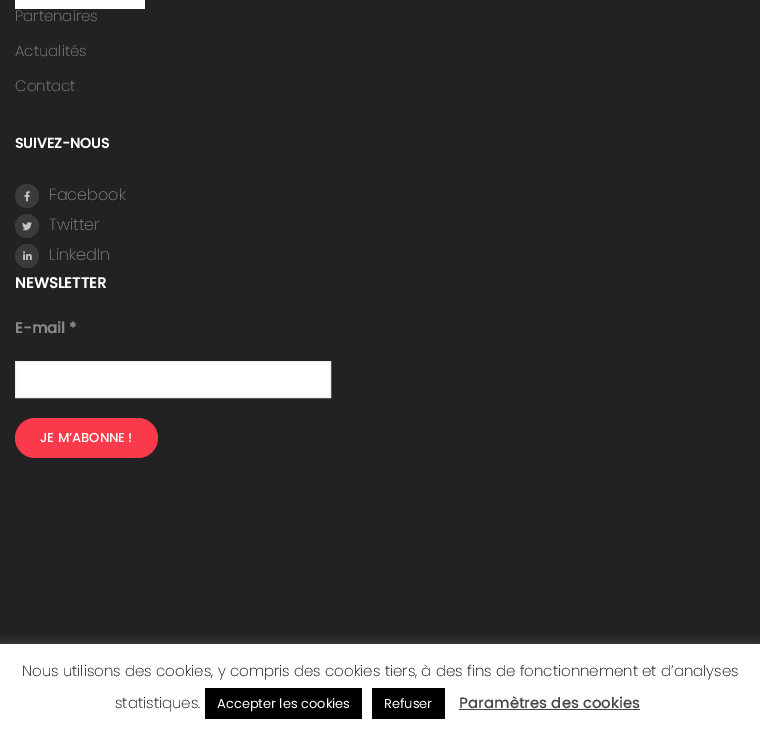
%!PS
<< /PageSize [760 736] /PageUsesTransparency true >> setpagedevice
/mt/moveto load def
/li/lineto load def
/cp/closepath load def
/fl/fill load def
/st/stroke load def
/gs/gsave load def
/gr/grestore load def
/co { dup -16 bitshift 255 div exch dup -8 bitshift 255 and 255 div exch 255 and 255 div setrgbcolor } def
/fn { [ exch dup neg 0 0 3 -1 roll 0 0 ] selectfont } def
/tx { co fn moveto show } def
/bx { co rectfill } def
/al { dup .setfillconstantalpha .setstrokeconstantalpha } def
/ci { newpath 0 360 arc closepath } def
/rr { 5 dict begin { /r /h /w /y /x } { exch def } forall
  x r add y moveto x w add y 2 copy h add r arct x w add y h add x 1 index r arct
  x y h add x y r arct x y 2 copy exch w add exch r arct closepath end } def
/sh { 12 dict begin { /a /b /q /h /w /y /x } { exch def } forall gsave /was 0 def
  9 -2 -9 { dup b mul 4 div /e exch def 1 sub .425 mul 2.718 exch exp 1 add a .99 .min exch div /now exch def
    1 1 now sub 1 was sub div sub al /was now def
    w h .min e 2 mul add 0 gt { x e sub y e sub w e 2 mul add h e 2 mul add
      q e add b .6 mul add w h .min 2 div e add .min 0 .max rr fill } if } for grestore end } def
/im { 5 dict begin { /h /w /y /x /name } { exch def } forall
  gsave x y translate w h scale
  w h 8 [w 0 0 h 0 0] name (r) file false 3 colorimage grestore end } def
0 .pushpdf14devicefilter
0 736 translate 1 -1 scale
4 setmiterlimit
0 0 760 736 16#222222 bx
15 0 130 9 16#FEFEFE bx
16#3B3B3B co
27 196 12 ci fl
(media/1.raw) 24 191 6 11 im
27 226 12 ci fl
(media/2.raw) 22 222 10 9 im
27 256 12 ci fl
(media/3.raw) 23 251 9 9 im
16#FFFFFF co
15.5 361.5 mt 330.5 361.5 li 330.5 397.5 li 15.5 397.5 li cp gs fl gr
16#EEEEEE co
st
16#FA394A co
15 418 143 40 20 rr fl
16#ACABAB co
0 643 760 92 0 5 .3 sh
0 644 760 92 16#FFFFFF bx
205 688 157 31 16#000000 bx
372 688 73 31 16#000000 bx
459 709 181 1 16#444444 bx
(Partenaires) 15 21 /Poppins-ExtraLight 15 16#888888 tx
(Actualités) 15 56 /Poppins-ExtraLight 15 16#888888 tx
(Contact) 15 91 /Poppins-ExtraLight 15 16#888888 tx
(SUIVEZ-NOUS) 15 148 /Poppins-Bold 14 16#FFFFFF tx
(Facebook) 49 200 /Poppins-ExtraLight 16 16#888888 tx
(Twitter) 49 230 /Poppins-ExtraLight 16 16#888888 tx
(LinkedIn) 49 260 /Poppins-ExtraLight 16 16#888888 tx
(NEWSLETTER) 15 288 /Poppins-Bold 15 16#FFFFFF tx
(E-mail *) 15 333 /Poppins-Bold 15 16#888888 tx
(JE M’ABONNE !) 40 442 /Poppins-Medium 13 16#FFFFFF tx
(Nous utilisons des cookies, y compris des cookies tiers, à des fins de fonctionnement et d’analyses) 22 676 /Poppins-ExtraLight 15 16#000000 tx
(statistiques.) 115 708 /Poppins-ExtraLight 15 16#000000 tx
(Accepter les cookies) 217 708 /Poppins-Regular 13 16#FFFFFF tx
(Refuser) 384 708 /Poppins-Regular 13 16#FFFFFF tx
(Paramètres des cookies) 459 708 /Poppins-Medium 15 16#444444 tx
.poppdf14devicefilter showpage
